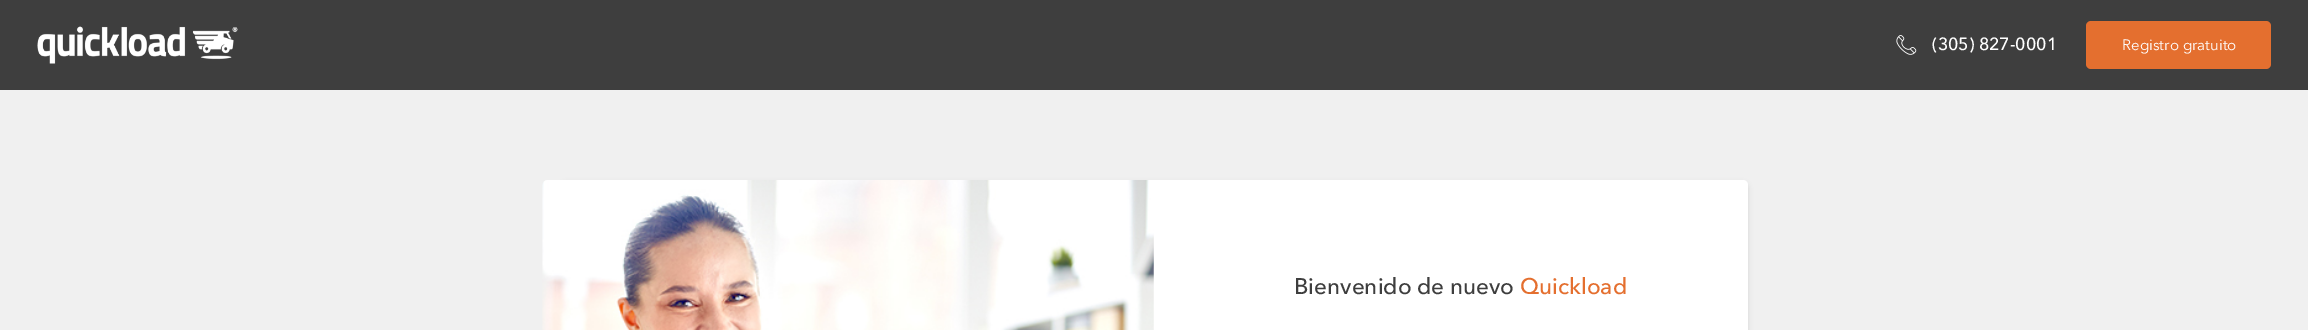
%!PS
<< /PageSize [2308 330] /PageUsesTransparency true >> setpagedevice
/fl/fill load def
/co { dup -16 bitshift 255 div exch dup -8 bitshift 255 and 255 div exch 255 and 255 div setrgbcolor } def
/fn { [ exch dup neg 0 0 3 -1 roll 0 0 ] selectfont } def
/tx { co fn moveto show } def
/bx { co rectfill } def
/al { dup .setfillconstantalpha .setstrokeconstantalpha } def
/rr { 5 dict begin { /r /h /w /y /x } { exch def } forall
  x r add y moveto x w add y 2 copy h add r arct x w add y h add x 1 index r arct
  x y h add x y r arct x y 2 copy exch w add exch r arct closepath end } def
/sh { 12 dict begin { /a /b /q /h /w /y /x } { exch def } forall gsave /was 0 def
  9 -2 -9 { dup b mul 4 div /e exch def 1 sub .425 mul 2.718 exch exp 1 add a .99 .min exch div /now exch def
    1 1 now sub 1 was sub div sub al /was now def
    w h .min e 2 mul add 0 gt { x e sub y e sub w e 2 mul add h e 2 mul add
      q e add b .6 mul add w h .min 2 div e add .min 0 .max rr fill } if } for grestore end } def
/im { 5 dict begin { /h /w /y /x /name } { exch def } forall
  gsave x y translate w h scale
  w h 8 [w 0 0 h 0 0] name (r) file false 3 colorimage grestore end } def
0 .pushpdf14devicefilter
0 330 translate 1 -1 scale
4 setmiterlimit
0 0 2308 330 16#F0F0F0 bx
0 0 2308 90 16#3E3E3E bx
(media/1.raw) 37 26 201 38 im
(media/2.raw) 1896 35 21 20 im
16#E46F2F co
2086 21 185 48 5 rr fl
16#000000 co
561 183 1187 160 5 2.5 .1 sh
16#FFFFFF co
561 180 1187 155 5 rr fl
(media/3.raw) 542 180 612 150 im
(\(305\) 827-0001) 1932 50 /AvenirNext-Medium 17.5 16#FFFFFF tx
(Registro gratuito) 2122 50 /AvenirNext-Regular 15 16#FFFFFF tx
(Bienvenido de nuevo) 1294 294 /AvenirNext-Medium 22.5 16#3E3E3E tx
(Quickload) 1520 294 /AvenirNext-Medium 22.5 16#E46F2F tx
.poppdf14devicefilter showpage
